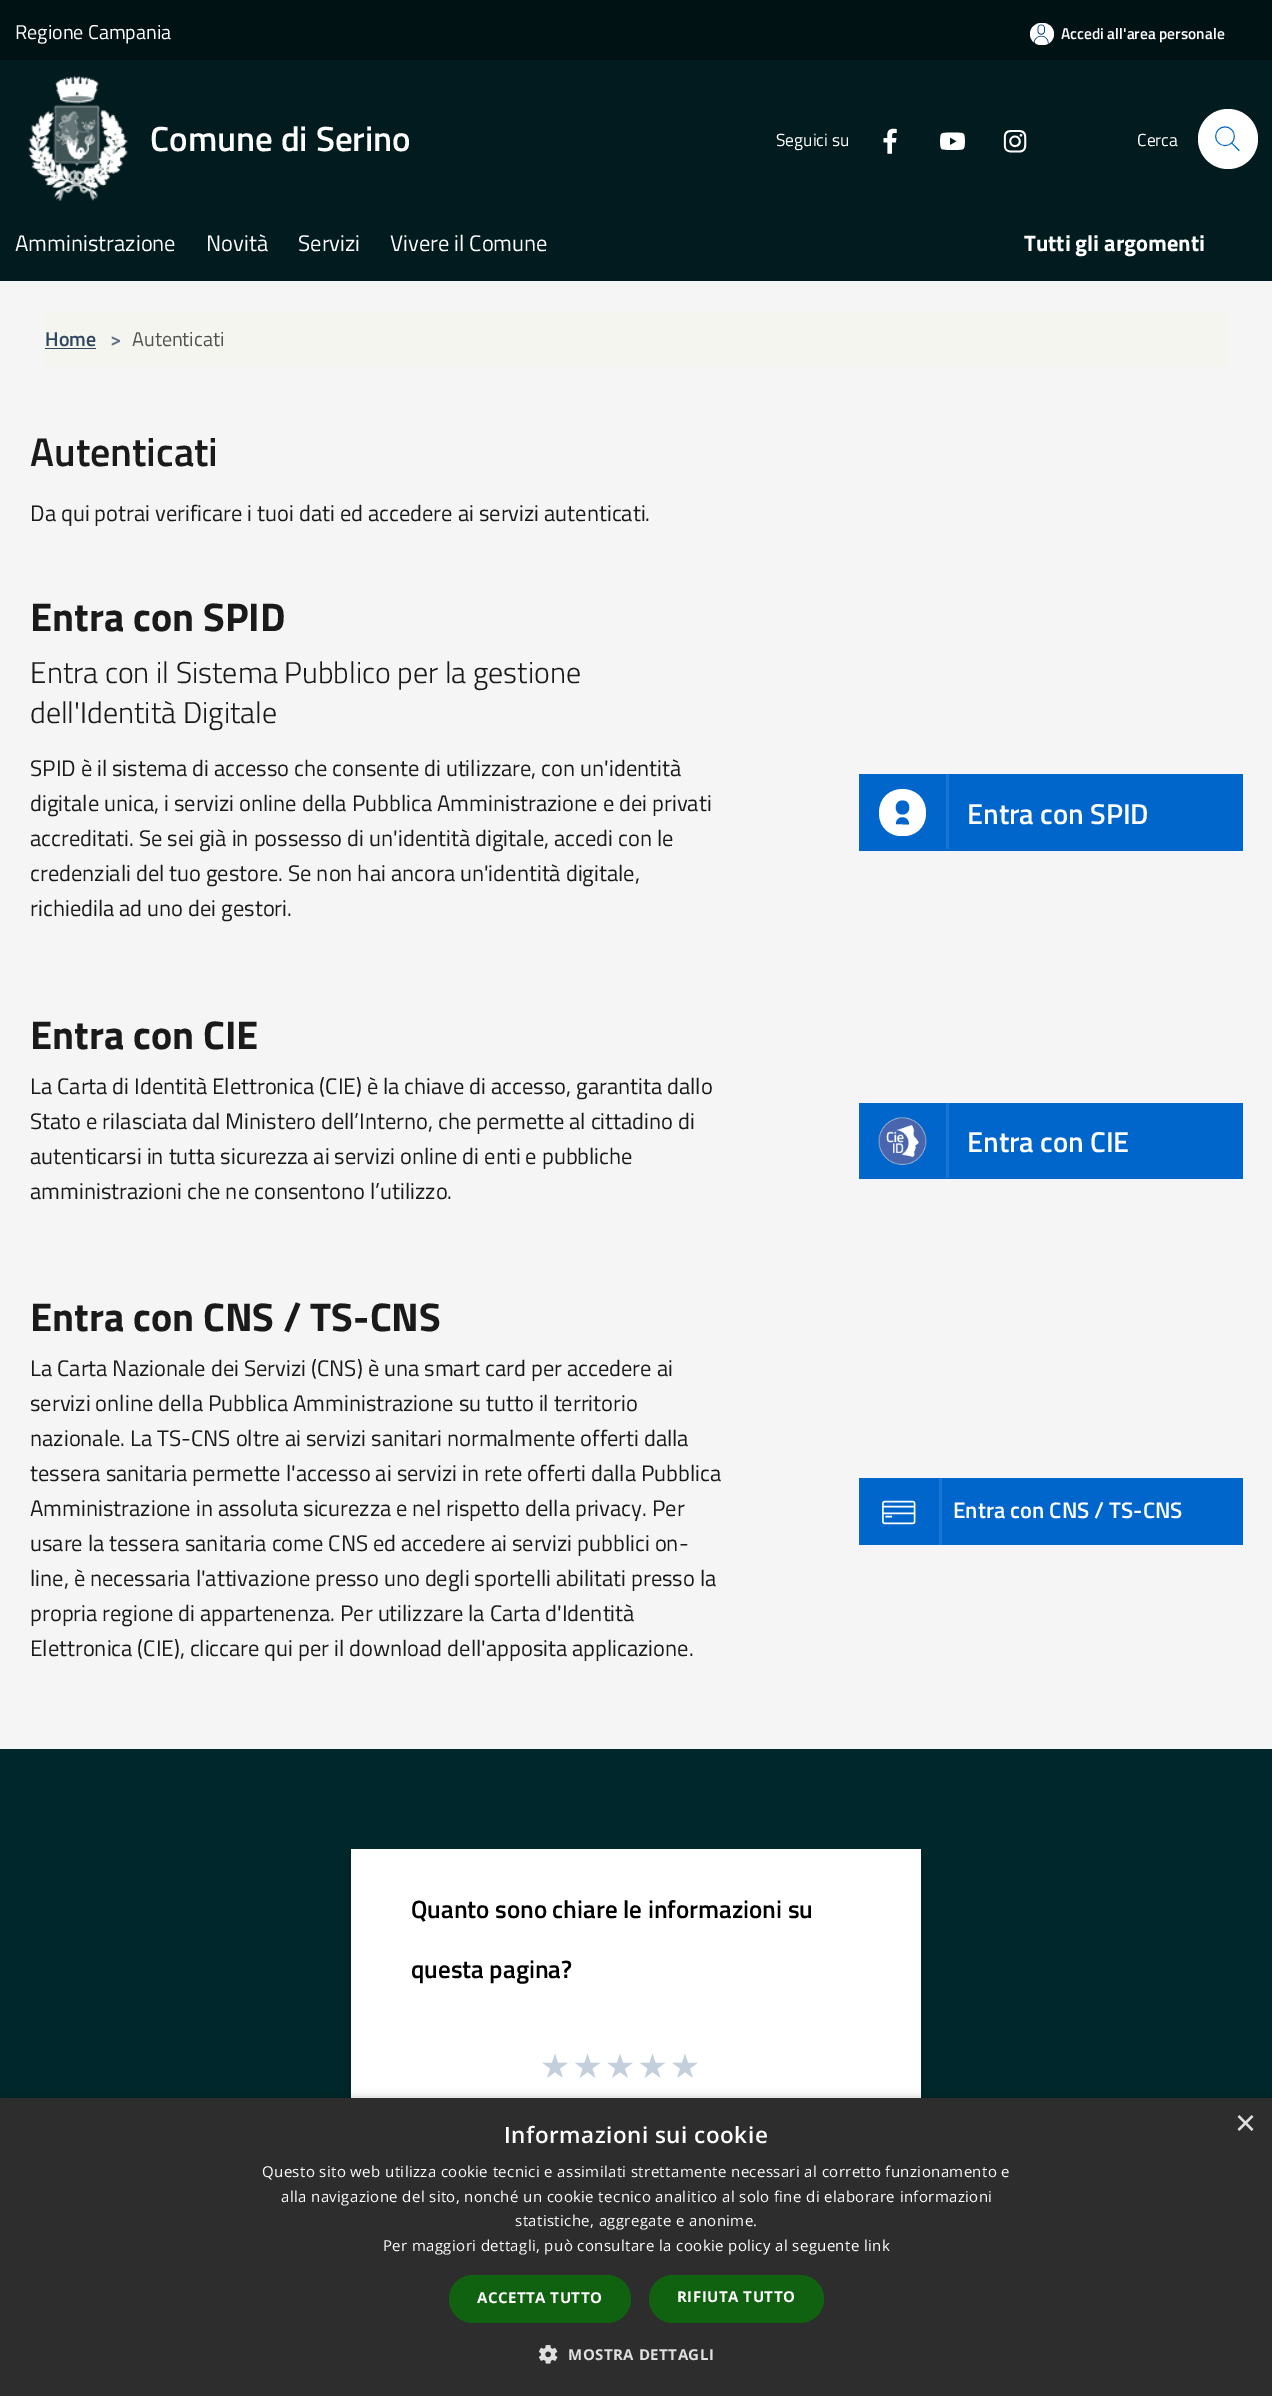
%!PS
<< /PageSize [1272 2396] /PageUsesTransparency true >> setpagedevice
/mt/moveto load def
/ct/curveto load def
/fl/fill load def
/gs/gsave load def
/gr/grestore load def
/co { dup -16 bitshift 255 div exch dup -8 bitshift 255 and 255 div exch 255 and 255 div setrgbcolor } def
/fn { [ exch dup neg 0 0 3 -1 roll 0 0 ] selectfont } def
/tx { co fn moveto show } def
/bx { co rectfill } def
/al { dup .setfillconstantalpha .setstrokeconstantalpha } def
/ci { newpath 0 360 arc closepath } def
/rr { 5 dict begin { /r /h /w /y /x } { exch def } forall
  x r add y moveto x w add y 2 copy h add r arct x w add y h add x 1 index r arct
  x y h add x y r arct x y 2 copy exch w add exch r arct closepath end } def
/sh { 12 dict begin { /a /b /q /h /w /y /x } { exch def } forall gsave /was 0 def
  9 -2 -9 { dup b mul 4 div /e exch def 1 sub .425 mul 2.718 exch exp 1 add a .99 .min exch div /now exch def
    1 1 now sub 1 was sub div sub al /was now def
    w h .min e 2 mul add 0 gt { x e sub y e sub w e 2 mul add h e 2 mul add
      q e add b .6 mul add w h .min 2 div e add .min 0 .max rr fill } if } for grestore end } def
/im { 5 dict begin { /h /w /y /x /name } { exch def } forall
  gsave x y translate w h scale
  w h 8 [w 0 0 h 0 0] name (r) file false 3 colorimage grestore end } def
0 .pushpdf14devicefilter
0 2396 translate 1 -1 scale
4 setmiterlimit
0 0 1272 2396 16#F5F5F5 bx
0 0 1272 60 16#011215 bx
16#FFFFFF co
1030 23 24 22 11 rr fl
(media/1.raw) 1033 24 16 20 im
0 60 1272 221 16#021B1E bx
(media/2.raw) 28 76 100 125 im
(media/3.raw) 883 128 14 26 im
(media/4.raw) 940 132 25 18 im
(media/5.raw) 1003 130 24 23 im
16#FFFFFF co
1228 139 30 ci fl
(media/6.raw) 1215 126 25 26 im
45 311 1183 55 16#F5F5F0 bx
45 348 51 1 16#30475F bx
859 774 384 77 16#0066CC bx
946 774 3 75 16#1A75D1 bx
gs
879 789 47 47 rectclip
16#FFFFFF co
926 813 mt 926 844 879 844 879 813 ct 879 781 926 781 926 813 ct fl
gr
16#0066CC co
902.5 814.5 mt 893.5 814.5 893.5 800.5 902.5 800.5 ct 911.5 800.5 911.5 814.5 902.5 814.5 ct 896 824 mt 896 815 909 815 909 824.5 ct fl
859 1103 384 76 16#0066CC bx
946 1103 3 75 16#1A75D1 bx
(media/7.raw) 878 1117 49 48 im
859 1478 384 67 16#0066CC bx
939 1478 3 67 16#1A75D1 bx
(media/8.raw) 882 1500 34 25 im
0 1749 1272 349 16#00272B bx
16#000000 co
351 1859 570 282 0 10 .15 sh
351 1849 570 249 16#FFFFFF bx
(media/9.raw) 542 2054 26 24 im
(media/10.raw) 574 2053 27 25 im
(media/9.raw) 607 2054 26 24 im
(media/10.raw) 639 2053 27 25 im
(media/9.raw) 672 2054 26 24 im
16#000000 co
1 2100 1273 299 0 5 .35 sh
0 2098 1272 298 16#2D2D2D bx
16#106110 co
449 2275 182 48 24 rr fl
649 2275 175 48 24 rr fl
(media/11.raw) 539 2345 19 19 im
(Regione Campania) 15 39 /TitilliumWeb-Regular 20 16#FFFFFF tx
(Accedi all'area personale) 1061 39 /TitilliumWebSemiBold-SemiBold 15.5 16#FFFFFF tx
(Comune di Serino) 150 151 /TitilliumWebSemiBold-SemiBold 35 16#FFFFFF tx
(Seguici su) 776 146 /TitilliumWeb-Regular 17.5 16#FFFFFF tx
(Cerca) 1137 146 /TitilliumWeb-Regular 17.5 16#FFFFFF tx
(Amministrazione) 15 251 /TitilliumWeb-Regular 22.5 16#FFFFFF tx
(Novità) 206 251 /TitilliumWeb-Regular 22.5 16#FFFFFF tx
(Servizi) 298 251 /TitilliumWeb-Regular 22.5 16#FFFFFF tx
(Vivere il Comune) 390 251 /TitilliumWeb-Regular 22.5 16#FFFFFF tx
(Tutti gli argomenti) 1024 251 /TitilliumWeb-Bold 22.5 16#FFFFFF tx
(Home) 45 346 /TitilliumWebSemiBold-SemiBold 20 16#30475F tx
(>) 110 346 /TitilliumWebSemiBold-SemiBold 20 16#5D7083 tx
(Autenticati) 132 346 /TitilliumWeb-Regular 20 16#525252 tx
(Autenticati) 30 466 /TitilliumWebSemiBold-SemiBold 40 16#1A1A1A tx
(Da qui potrai verificare i tuoi dati ed accedere ai servizi autenticati.) 30 521 /TitilliumWeb-Regular 22.5 16#1A1A1A tx
(Entra con SPID) 30 631 /TitilliumWeb-Bold 40 16#1A1A1A tx
(Entra con il Sistema Pubblico per la gestione) 30 683 /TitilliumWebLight-Light 30 16#1A1A1A tx
(dell'Identità Digitale) 30 723 /TitilliumWebLight-Light 30 16#1A1A1A tx
(SPID è il sistema di accesso che consente di utilizzare, con un'identità) 30 776 /TitilliumWeb-Regular 22.5 16#1A1A1A tx
(digitale unica, i servizi online della Pubblica Amministrazione e dei privati) 30 811 /TitilliumWeb-Regular 22.5 16#1A1A1A tx
(accreditati. Se sei già in possesso di un'identità digitale, accedi con le) 30 846 /TitilliumWeb-Regular 22.5 16#1A1A1A tx
(credenziali del tuo gestore. Se non hai ancora un'identità digitale,) 30 881 /TitilliumWeb-Regular 22.5 16#1A1A1A tx
(richiedila ad uno dei gestori.) 30 916 /TitilliumWeb-Regular 22.5 16#1A1A1A tx
(Entra con SPID) 967 824 /TitilliumWebSemiBold-SemiBold 28.75 16#FFFFFF tx
(Entra con CIE) 30 1049 /TitilliumWeb-Bold 40 16#1A1A1A tx
(La Carta di Identità Elettronica \(CIE\) è la chiave di accesso, garantita dallo) 30 1094 /TitilliumWeb-Regular 22.5 16#1A1A1A tx
(Stato e rilasciata dal Ministero dell’Interno, che permette al cittadino di) 30 1129 /TitilliumWeb-Regular 22.5 16#1A1A1A tx
(autenticarsi in tutta sicurezza ai servizi online di enti e pubbliche) 30 1164 /TitilliumWeb-Regular 22.5 16#1A1A1A tx
(amministrazioni che ne consentono l’utilizzo.) 30 1199 /TitilliumWeb-Regular 22.5 16#1A1A1A tx
(Entra con CIE) 967 1152 /TitilliumWebSemiBold-SemiBold 28.75 16#FFFFFF tx
(Entra con CNS / TS-CNS) 30 1331 /TitilliumWeb-Bold 40 16#1A1A1A tx
(La Carta Nazionale dei Servizi \(CNS\) è una smart card per accedere ai) 30 1376 /TitilliumWeb-Regular 22.5 16#1A1A1A tx
(servizi online della Pubblica Amministrazione su tutto il territorio) 30 1411 /TitilliumWeb-Regular 22.5 16#1A1A1A tx
(nazionale. La TS-CNS oltre ai servizi sanitari normalmente offerti dalla) 30 1446 /TitilliumWeb-Regular 22.5 16#1A1A1A tx
(tessera sanitaria permette l'accesso ai servizi in rete offerti dalla Pubblica) 30 1481 /TitilliumWeb-Regular 22.5 16#1A1A1A tx
(Amministrazione in assoluta sicurezza e nel rispetto della privacy. Per) 30 1516 /TitilliumWeb-Regular 22.5 16#1A1A1A tx
(usare la tessera sanitaria come CNS ed accedere ai servizi pubblici on-) 30 1551 /TitilliumWeb-Regular 22.5 16#1A1A1A tx
(line, è necessaria l'attivazione presso uno degli sportelli abilitati presso la) 30 1586 /TitilliumWeb-Regular 22.5 16#1A1A1A tx
(propria regione di appartenenza. Per utilizzare la Carta d'Identità) 30 1621 /TitilliumWeb-Regular 22.5 16#1A1A1A tx
(Elettronica \(CIE\), cliccare qui per il download dell'apposita applicazione.) 30 1656 /TitilliumWeb-Regular 22.5 16#1A1A1A tx
(Entra con CNS / TS-CNS) 953 1518 /TitilliumWebSemiBold-SemiBold 22.5 16#FFFFFF tx
(Quanto sono chiare le informazioni su) 411 1918 /TitilliumWebSemiBold-SemiBold 25 16#000000 tx
(questa pagina?) 411 1978 /TitilliumWebSemiBold-SemiBold 25 16#000000 tx
(×) 1235 2135 /LiberationSans-Regular 36 16#E0E0E0 tx
/OpenSans-SemiBold 22.5 fn
16#FFFFFF co
504 2143 mt .5 0 (Informazioni sui cookie) ashow
/OpenSans-Regular 15 fn
262 2177 mt .38 0 (Questo sito web utilizza cookie tecnici e assimilati strettamente necessari al corretto funzionamento e) ashow
281 2202 mt .38 0 (alla navigazione del sito, nonché un cookie tecnico analitico al solo fine di elaborare informazioni) ashow
515 2226 mt .38 0 (statistiche, aggregate e anonime.) ashow
383 2251 mt .38 0 (Per maggiori dettagli, può consultare la cookie policy al seguente link) ashow
/OpenSans-Bold 15 fn
477 2303 mt .5 0 (ACCETTA TUTTO) ashow
677 2302 mt .5 0 (RIFIUTA TUTTO) ashow
16#E0E0E0 co
568 2360 mt .5 0 (MOSTRA DETTAGLI) ashow
.poppdf14devicefilter showpage
